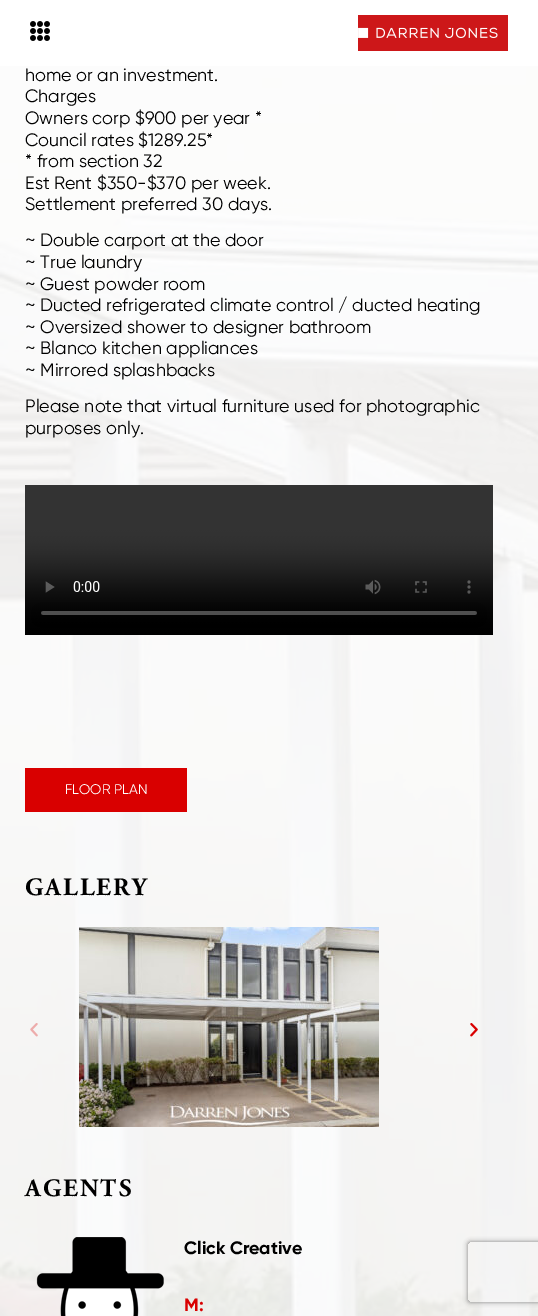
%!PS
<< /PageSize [538 1316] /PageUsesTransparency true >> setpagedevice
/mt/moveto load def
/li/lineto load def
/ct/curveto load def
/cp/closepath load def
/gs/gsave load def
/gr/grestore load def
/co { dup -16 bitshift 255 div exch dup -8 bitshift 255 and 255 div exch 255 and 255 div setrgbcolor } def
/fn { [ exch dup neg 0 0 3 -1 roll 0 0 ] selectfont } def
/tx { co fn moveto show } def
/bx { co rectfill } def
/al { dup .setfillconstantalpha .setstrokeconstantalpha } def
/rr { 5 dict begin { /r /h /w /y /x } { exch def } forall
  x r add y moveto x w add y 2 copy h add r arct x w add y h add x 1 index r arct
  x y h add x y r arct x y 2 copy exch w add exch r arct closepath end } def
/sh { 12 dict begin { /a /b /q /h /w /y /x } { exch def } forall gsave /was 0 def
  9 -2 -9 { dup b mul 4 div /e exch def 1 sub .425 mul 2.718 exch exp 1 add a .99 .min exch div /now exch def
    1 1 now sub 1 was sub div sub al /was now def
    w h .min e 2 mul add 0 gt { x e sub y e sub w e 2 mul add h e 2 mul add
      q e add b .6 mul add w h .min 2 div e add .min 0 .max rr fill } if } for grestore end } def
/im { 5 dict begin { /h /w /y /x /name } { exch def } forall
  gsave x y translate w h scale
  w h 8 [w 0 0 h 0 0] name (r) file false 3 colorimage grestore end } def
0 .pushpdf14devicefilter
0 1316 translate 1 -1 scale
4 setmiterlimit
0 0 538 1316 16#FFFFFF bx
(media/1.raw) 30 21 20 20 im
(media/2.raw) 358 15 150 36 im
(media/3.raw) 0 66 538 1250 im
(media/4.raw) 25 485 468 150 im
25 768 162 44 16#D90000 bx
(media/5.raw) 30 1023 8 14 im
(media/6.raw) 79 927 300 200 im
(media/7.raw) 470 1023 8 14 im
(media/8.raw) 36 1237 128 79 im
gs
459 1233 mt 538 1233 li 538 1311 li 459 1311 li cp 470 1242 mt 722 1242 li 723 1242 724 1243 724 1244 ct 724 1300 li 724 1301 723 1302 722 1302 ct 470 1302 li 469 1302 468 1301 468 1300 ct 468 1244 li 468 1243 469 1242 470 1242 ct cp eoclip newpath
16#808080 co
468 1242 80 60 2 2.5 1 sh
gr
(home or an investment.) 25 81 /Gilroy-Regular 18 16#000000 tx
(Charges) 25 102 /Gilroy-Regular 18 16#000000 tx
(Owners corp $900 per year *) 25 124 /Gilroy-Regular 18 16#000000 tx
(Council rates $1289.25*) 25 146 /Gilroy-Regular 18 16#000000 tx
(* from section 32) 25 167 /Gilroy-Regular 18 16#000000 tx
(Est Rent $350-$370 per week.) 25 189 /Gilroy-Regular 18 16#000000 tx
(Settlement preferred 30 days.) 25 210 /Gilroy-Regular 18 16#000000 tx
(~ Double carport at the door) 25 246 /Gilroy-Regular 18 16#000000 tx
(~ True laundry) 25 268 /Gilroy-Regular 18 16#000000 tx
(~ Guest powder room) 25 290 /Gilroy-Regular 18 16#000000 tx
(~ Ducted refrigerated climate control / ducted heating) 25 311 /Gilroy-Regular 18 16#000000 tx
(~ Oversized shower to designer bathroom) 25 333 /Gilroy-Regular 18 16#000000 tx
(~ Blanco kitchen appliances) 25 354 /Gilroy-Regular 18 16#000000 tx
(~ Mirrored splashbacks) 25 376 /Gilroy-Regular 18 16#000000 tx
(Please note that virtual furniture used for photographic) 25 412 /Gilroy-Regular 18 16#000000 tx
(purposes only.) 25 434 /Gilroy-Regular 18 16#000000 tx
(FLOOR PLAN) 65 794 /Gilroy-Regular 14 16#FFFFFF tx
/AdobeGaramond-Bold 25 fn
16#000000 co
25 895 mt 2 0 (GALLERY) ashow
25 1196 mt 2 0 (AGENTS) ashow
(Click Creative) 184 1254 /Gilroy-Bold 18 16#000000 tx
(M:) 184 1311 /Gilroy-Bold 18 16#D90000 tx
.poppdf14devicefilter showpage
